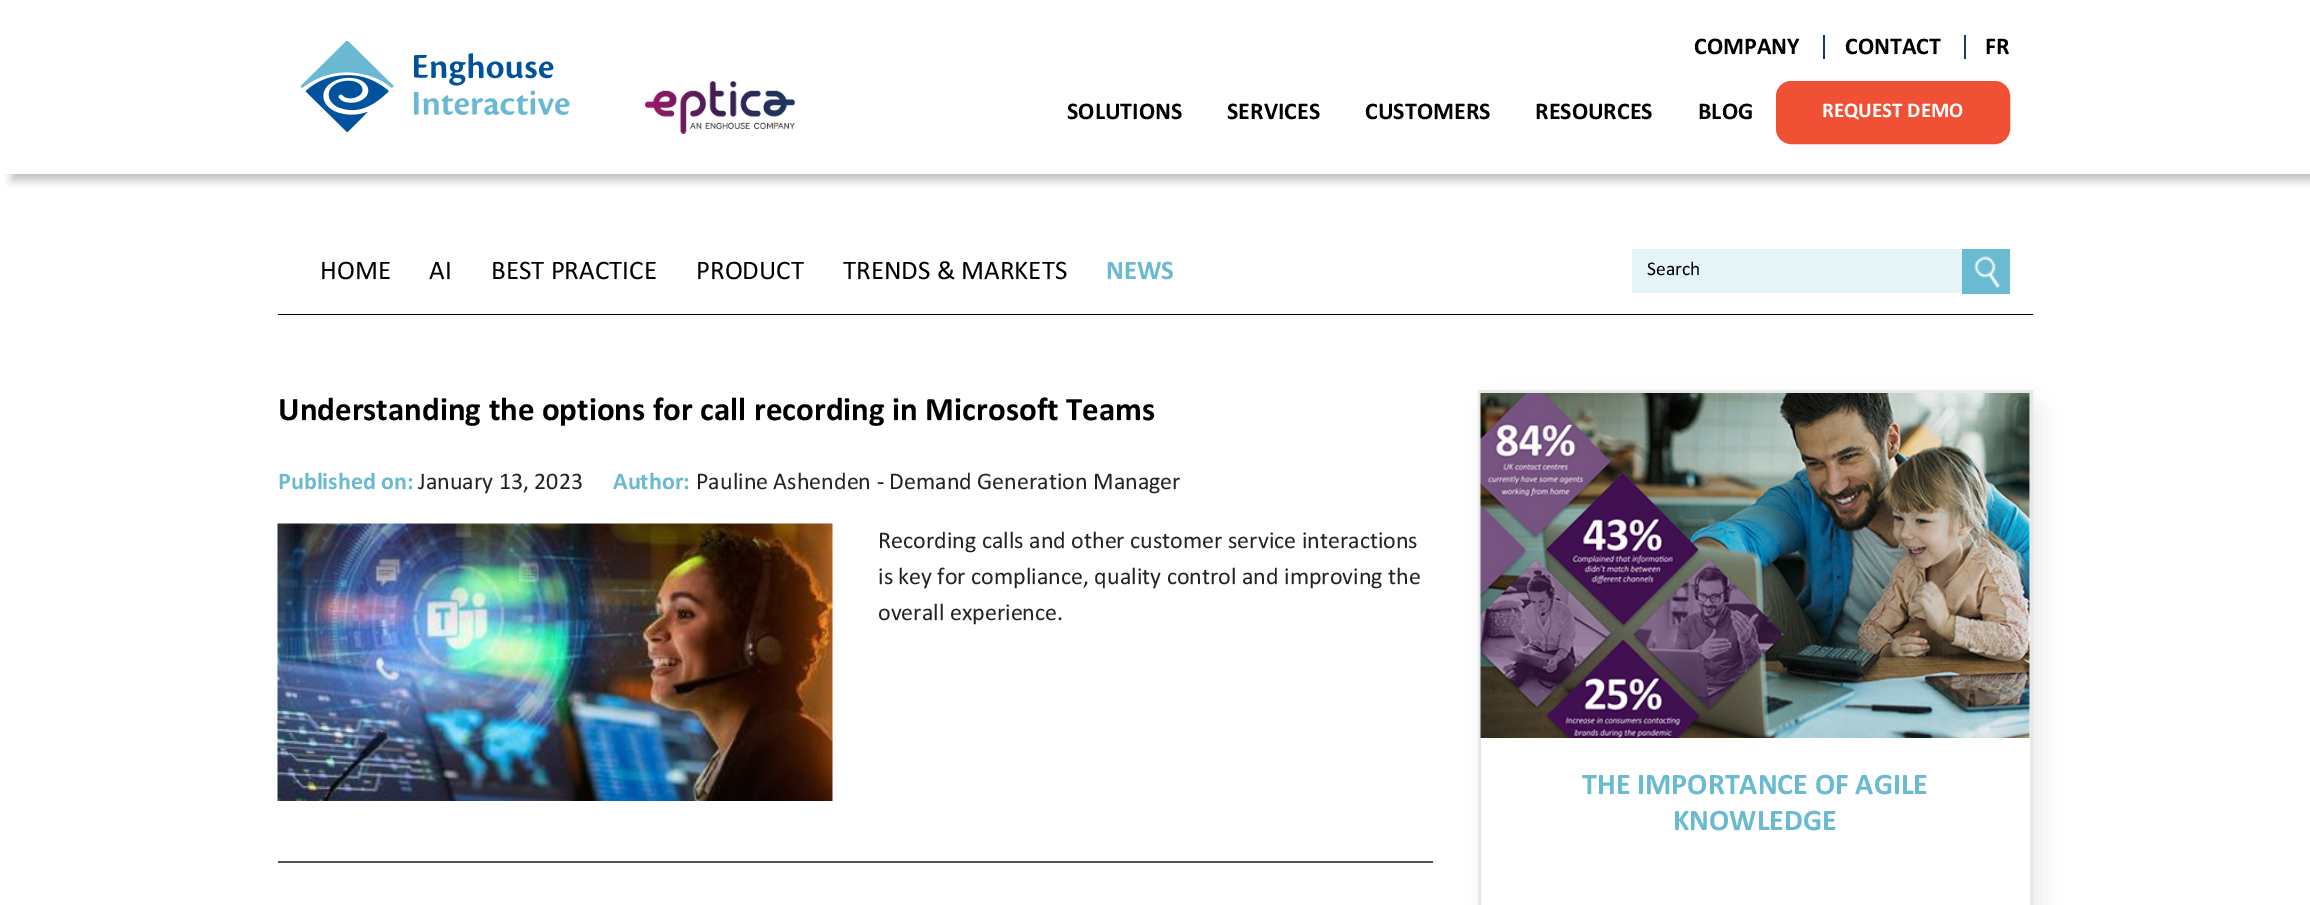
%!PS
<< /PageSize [2310 905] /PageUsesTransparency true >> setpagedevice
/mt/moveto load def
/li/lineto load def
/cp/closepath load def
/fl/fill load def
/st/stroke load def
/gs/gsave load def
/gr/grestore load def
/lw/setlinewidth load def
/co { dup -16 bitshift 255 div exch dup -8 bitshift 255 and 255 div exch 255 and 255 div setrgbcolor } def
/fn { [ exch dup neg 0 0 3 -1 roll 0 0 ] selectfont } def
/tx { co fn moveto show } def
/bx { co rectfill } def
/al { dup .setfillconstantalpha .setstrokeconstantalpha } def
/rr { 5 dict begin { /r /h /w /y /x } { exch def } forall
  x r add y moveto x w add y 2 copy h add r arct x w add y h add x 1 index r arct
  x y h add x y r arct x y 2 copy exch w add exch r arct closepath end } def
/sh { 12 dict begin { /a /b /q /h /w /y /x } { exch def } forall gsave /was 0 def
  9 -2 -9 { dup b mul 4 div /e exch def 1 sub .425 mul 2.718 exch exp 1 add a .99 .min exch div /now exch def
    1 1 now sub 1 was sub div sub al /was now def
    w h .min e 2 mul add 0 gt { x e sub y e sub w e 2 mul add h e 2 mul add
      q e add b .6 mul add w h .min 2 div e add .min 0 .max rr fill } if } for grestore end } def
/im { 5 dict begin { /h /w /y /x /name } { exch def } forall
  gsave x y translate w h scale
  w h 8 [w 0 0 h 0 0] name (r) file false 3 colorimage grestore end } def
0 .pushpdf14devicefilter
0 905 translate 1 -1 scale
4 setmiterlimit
0 0 2310 905 16#FFFFFF bx
gs
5 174 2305 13 rectclip
16#000000 co
12 6 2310 174 0 5 .26 sh
gr
(media/1.raw) 300 41 270 91 im
(media/2.raw) 645 81 150 53 im
1823 35 2 24 16#183A64 bx
1964 35 2 24 16#183A64 bx
16#F05135 co
1777 82 232 61 14 rr gs fl gr
2 lw
st
278 314 1755 1 16#000000 bx
1632 249 330 44 16#E5F5F7 bx
1962 249 48 45 16#6ABAD2 bx
(media/3.raw) 1974 256 26 32 im
278 861 1155 2 16#535353 bx
(media/4.raw) 277 523 556 278 im
16#000000 co
1485 401 555 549 15 10 .08 sh
16#FFFFFF co
1479.5 391.5 mt 2031.5 391.5 li 2031.5 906.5 li 1479.5 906.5 li cp gs fl gr
16#E8E8E8 co
3 lw
st
(media/5.raw) 1480 393 550 345 im
(COMPANY) 1694 54 /Calibri-Bold 24 16#000000 tx
(CONTACT) 1845 54 /Calibri-Bold 24 16#000000 tx
(FR) 1985 54 /Calibri-Bold 24 16#000000 tx
(SOLUTIONS) 1067 119 /Calibri-Bold 24 16#000000 tx
(SERVICES) 1227 119 /Calibri-Bold 24 16#000000 tx
(CUSTOMERS) 1365 119 /Calibri-Bold 24 16#000000 tx
(RESOURCES) 1535 119 /Calibri-Bold 24 16#000000 tx
(BLOG) 1698 119 /Calibri-Bold 24 16#000000 tx
(REQUEST DEMO) 1822 117 /Calibri-Bold 21 16#FFFFFF tx
(HOME) 320 279 /Calibri-Regular 27 16#000000 tx
(AI) 429 279 /Calibri-Regular 27 16#000000 tx
(BEST PRACTICE) 491 279 /Calibri-Regular 27 16#000000 tx
(PRODUCT) 696 279 /Calibri-Regular 27 16#000000 tx
(TRENDS & MARKETS) 843 279 /Calibri-Regular 27 16#000000 tx
(NEWS) 1106 279 /Calibri-Bold 27 16#6ABAD2 tx
(Search) 1647 275 /Calibri-Regular 19.5 16#000000 tx
(Understanding the options for call recording in Microsoft Teams) 278 420 /Calibri-Bold 33 16#000000 tx
(Published on:) 278 489 /Calibri-Bold 24 16#6ABAD2 tx
(January 13, 2023) 418 489 /Calibri-Regular 24 16#232323 tx
(Author:) 613 489 /Calibri-Bold 24 16#6ABAD2 tx
(Pauline Ashenden - Demand Generation Manager) 696 489 /Calibri-Regular 24 16#232323 tx
(Recording calls and other customer service interactions) 878 548 /Calibri-Regular 24 16#232323 tx
(is key for compliance, quality control and improving the) 878 584 /Calibri-Regular 24 16#232323 tx
(overall experience.) 878 620 /Calibri-Regular 24 16#232323 tx
(THE IMPORTANCE OF AGILE) 1582 794 /Calibri-Bold 30 16#6ABAD2 tx
(KNOWLEDGE) 1673 830 /Calibri-Bold 30 16#6ABAD2 tx
.poppdf14devicefilter showpage
